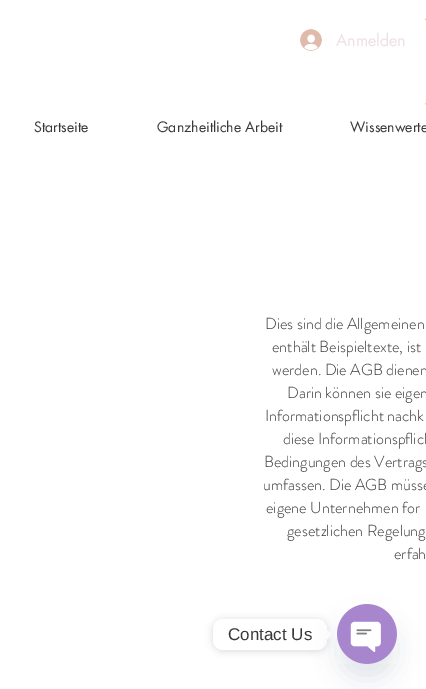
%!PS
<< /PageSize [426 689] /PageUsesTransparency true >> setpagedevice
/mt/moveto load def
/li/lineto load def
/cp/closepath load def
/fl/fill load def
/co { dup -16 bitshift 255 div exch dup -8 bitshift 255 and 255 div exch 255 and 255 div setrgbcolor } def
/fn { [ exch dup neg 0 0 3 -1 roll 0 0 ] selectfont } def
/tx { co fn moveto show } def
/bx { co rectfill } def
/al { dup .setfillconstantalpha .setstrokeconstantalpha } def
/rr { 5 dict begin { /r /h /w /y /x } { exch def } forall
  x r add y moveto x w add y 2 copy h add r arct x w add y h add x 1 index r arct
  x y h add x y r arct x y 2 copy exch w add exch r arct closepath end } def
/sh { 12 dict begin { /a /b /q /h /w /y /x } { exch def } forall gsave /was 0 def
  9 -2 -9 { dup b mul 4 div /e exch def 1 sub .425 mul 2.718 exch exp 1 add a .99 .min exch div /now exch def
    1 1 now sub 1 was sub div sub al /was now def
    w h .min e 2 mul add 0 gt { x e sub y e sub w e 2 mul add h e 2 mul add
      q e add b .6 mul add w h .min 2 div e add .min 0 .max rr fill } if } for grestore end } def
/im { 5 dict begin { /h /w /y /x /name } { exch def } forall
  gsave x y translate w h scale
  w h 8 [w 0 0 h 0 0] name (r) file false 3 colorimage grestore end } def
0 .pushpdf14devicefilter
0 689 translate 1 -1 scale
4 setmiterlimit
0 0 426 689 16#FFFFFF bx
(media/1.raw) 300 29 22 22 im
(media/2.raw) 425 18 1 87 im
16#000000 co
213 620 114 31 10 4 .15 sh
16#FFFFFF co
213 619 114 31 10 rr fl
327 639.5 mt 327 629.5 li 332 634.5 li cp fl
16#49687E co
337 620 60 60 30 12 .16 sh
(media/3.raw) 337 604 60 60 im
(Anmelden) 336 46 /futura-Regular 16 16#EDDFE4 tx
(Startseite) 34 132 /futura-Regular 14 16#383838 tx
(Ganzheitliche Arbeit) 157 132 /futura-Regular 14 16#383838 tx
(Wissenwerte) 350 132 /futura-Regular 14 16#383838 tx
(Dies sind die Allgemeinen) 265 329 /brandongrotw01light-Light 16 16#383838 tx
(enthält Beispieltexte, ist) 272 352 /brandongrotw01light-Light 16 16#383838 tx
(werden. Die AGB dienen) 272 375 /brandongrotw01light-Light 16 16#383838 tx
(Darin können sie eigen) 287 398 /brandongrotw01light-Light 16 16#383838 tx
(Informationspflicht nachk) 265 421 /brandongrotw01light-Light 16 16#383838 tx
(diese Informationspflich) 283 444 /brandongrotw01light-Light 16 16#383838 tx
(Bedingungen des Vertrags) 264 467 /brandongrotw01light-Light 16 16#383838 tx
(umfassen. Die AGB müsse) 263 490 /brandongrotw01light-Light 16 16#383838 tx
(eigene Unternehmen for) 266 513 /brandongrotw01light-Light 16 16#383838 tx
(gesetzlichen Regelung) 287 536 /brandongrotw01light-Light 16 16#383838 tx
(erfah) 394 559 /brandongrotw01light-Light 16 16#383838 tx
(Contact Us) 228 640 /LiberationSans-Regular 17 16#383838 tx
.poppdf14devicefilter showpage
